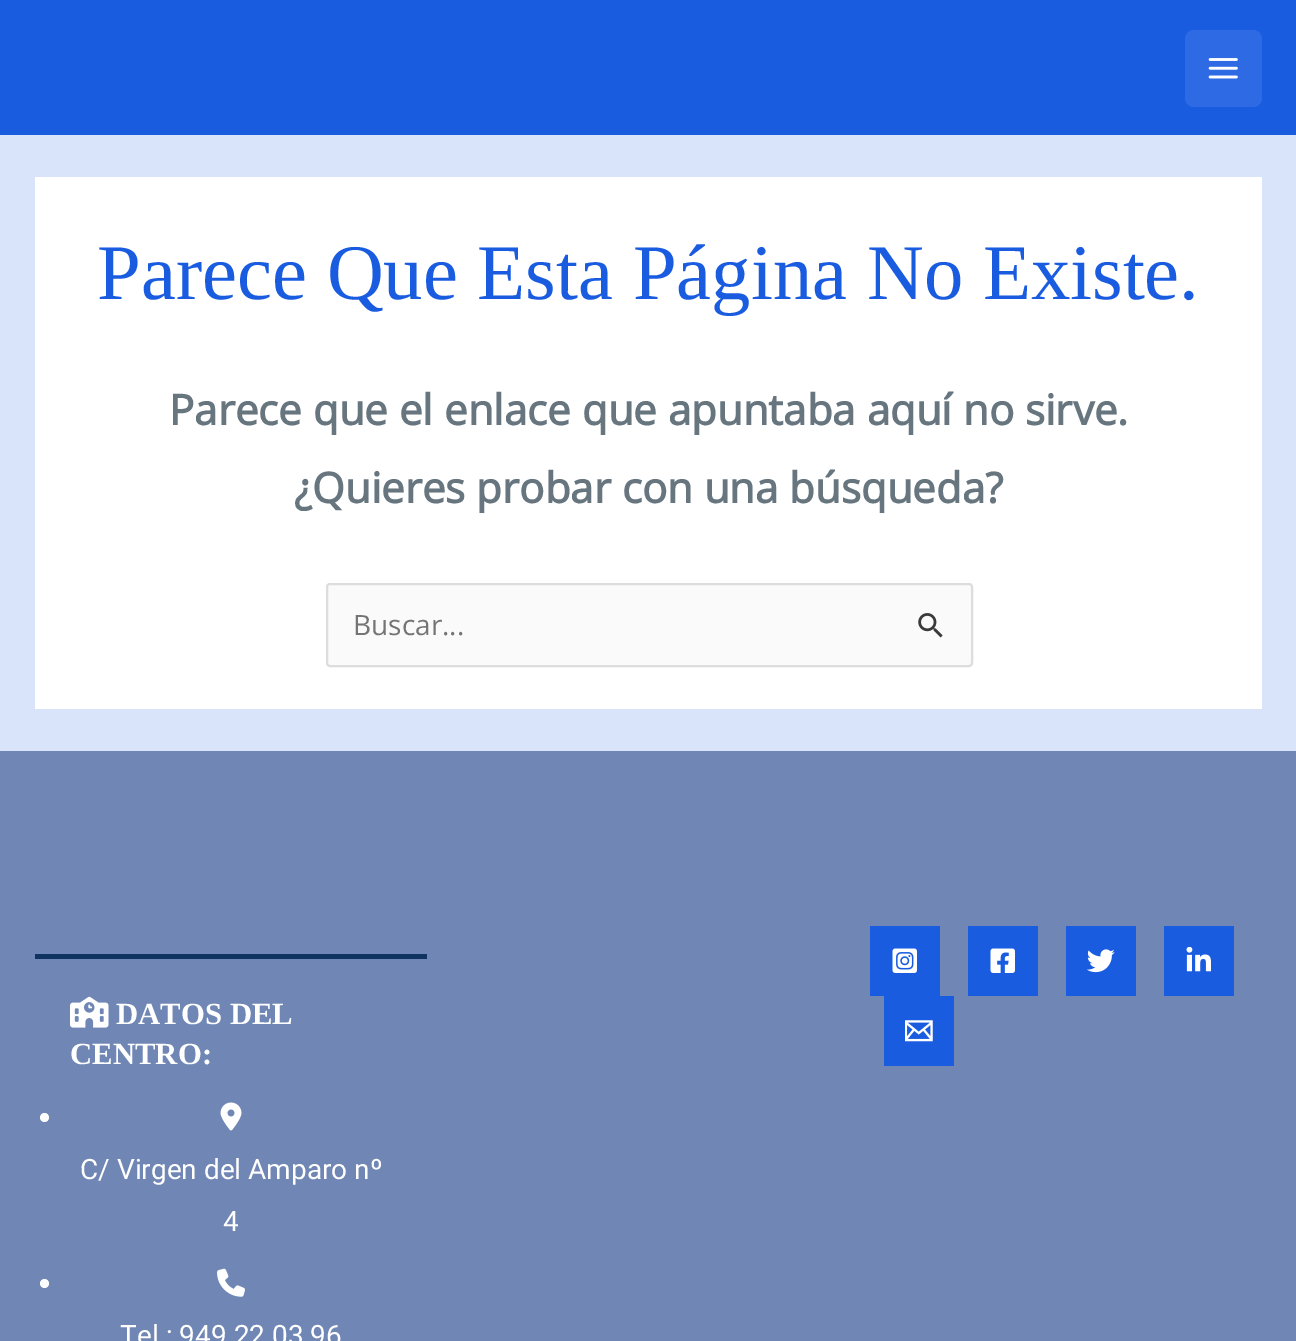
%!PS
<< /PageSize [1296 1341] >> setpagedevice
/fl/fill load def
/st/stroke load def
/gs/gsave load def
/gr/grestore load def
/lw/setlinewidth load def
/co { dup -16 bitshift 255 div exch dup -8 bitshift 255 and 255 div exch 255 and 255 div setrgbcolor } def
/fn { [ exch dup neg 0 0 3 -1 roll 0 0 ] selectfont } def
/tx { co fn moveto show } def
/bx { co rectfill } def
/ci { newpath 0 360 arc closepath } def
/rr { 5 dict begin { /r /h /w /y /x } { exch def } forall
  x r add y moveto x w add y 2 copy h add r arct x w add y h add x 1 index r arct
  x y h add x y r arct x y 2 copy exch w add exch r arct closepath end } def
/im { 5 dict begin { /h /w /y /x /name } { exch def } forall
  gsave x y translate w h scale
  w h 8 [w 0 0 h 0 0] name (r) file false 3 colorimage grestore end } def
0 1341 translate 1 -1 scale
4 setmiterlimit
0 0 1296 1341 16#D9E4FB bx
0 0 1296 135 16#1A5CE0 bx
16#2D6AE4 co
1185 30 77 77 9 rr fl
(media/1.raw) 1208 58 30 21 im
35 177 1227 532 16#FFFFFF bx
16#FAFAFA co
327 584 645 82 3 rr gs fl gr
16#DDDDDD co
2 lw
st
(media/2.raw) 918 613 25 25 im
0 751 1296 590 16#7087B5 bx
35 954 392 5 16#0F3460 bx
(media/3.raw) 70 996 39 32 im
16#FFFFFF co
44.5 1117.5 4.5 ci fl
(media/4.raw) 220 1102 22 29 im
44.5 1283.5 4.5 ci fl
(media/5.raw) 217 1268 28 29 im
870 926 70 70 16#1A5CE0 bx
(media/6.raw) 892 948 25 25 im
968 926 70 70 16#1A5CE0 bx
(media/7.raw) 990 948 25 25 im
1066 926 70 70 16#1A5CE0 bx
(media/8.raw) 1087 949 28 24 im
1164 926 70 70 16#1A5CE0 bx
(media/9.raw) 1186 947 25 25 im
884 996 70 70 16#1A5CE0 bx
(media/10.raw) 905 1020 28 22 im
(Parece Que Esta Página No Existe.) 97 299 /LiberationSerif-Regular 78.75 16#1A5CE0 tx
(Parece que el enlace que apuntaba aquí no sirve.) 169 425 /OpenSans-Bold 42 16#67757F tx
(¿Quieres probar con una búsqueda?) 294 503 /OpenSans-Bold 42 16#67757F tx
(Buscar...) 353 635 /OpenSans-Regular 28 16#757575 tx
(DATOS DEL) 116 1024 /LiberationSerif-Bold 30.75 16#FFFFFF tx
(CENTRO:) 70 1064 /LiberationSerif-Bold 30.75 16#FFFFFF tx
(C/ Virgen del Amparo nº) 80 1179 /Roboto-Regular 28 16#FFFFFF tx
(4) 223 1231 /Roboto-Regular 28 16#FFFFFF tx
(Tel.: 949 22 03 96) 120 1345 /Roboto-Regular 28 16#FFFFFF tx
showpage
